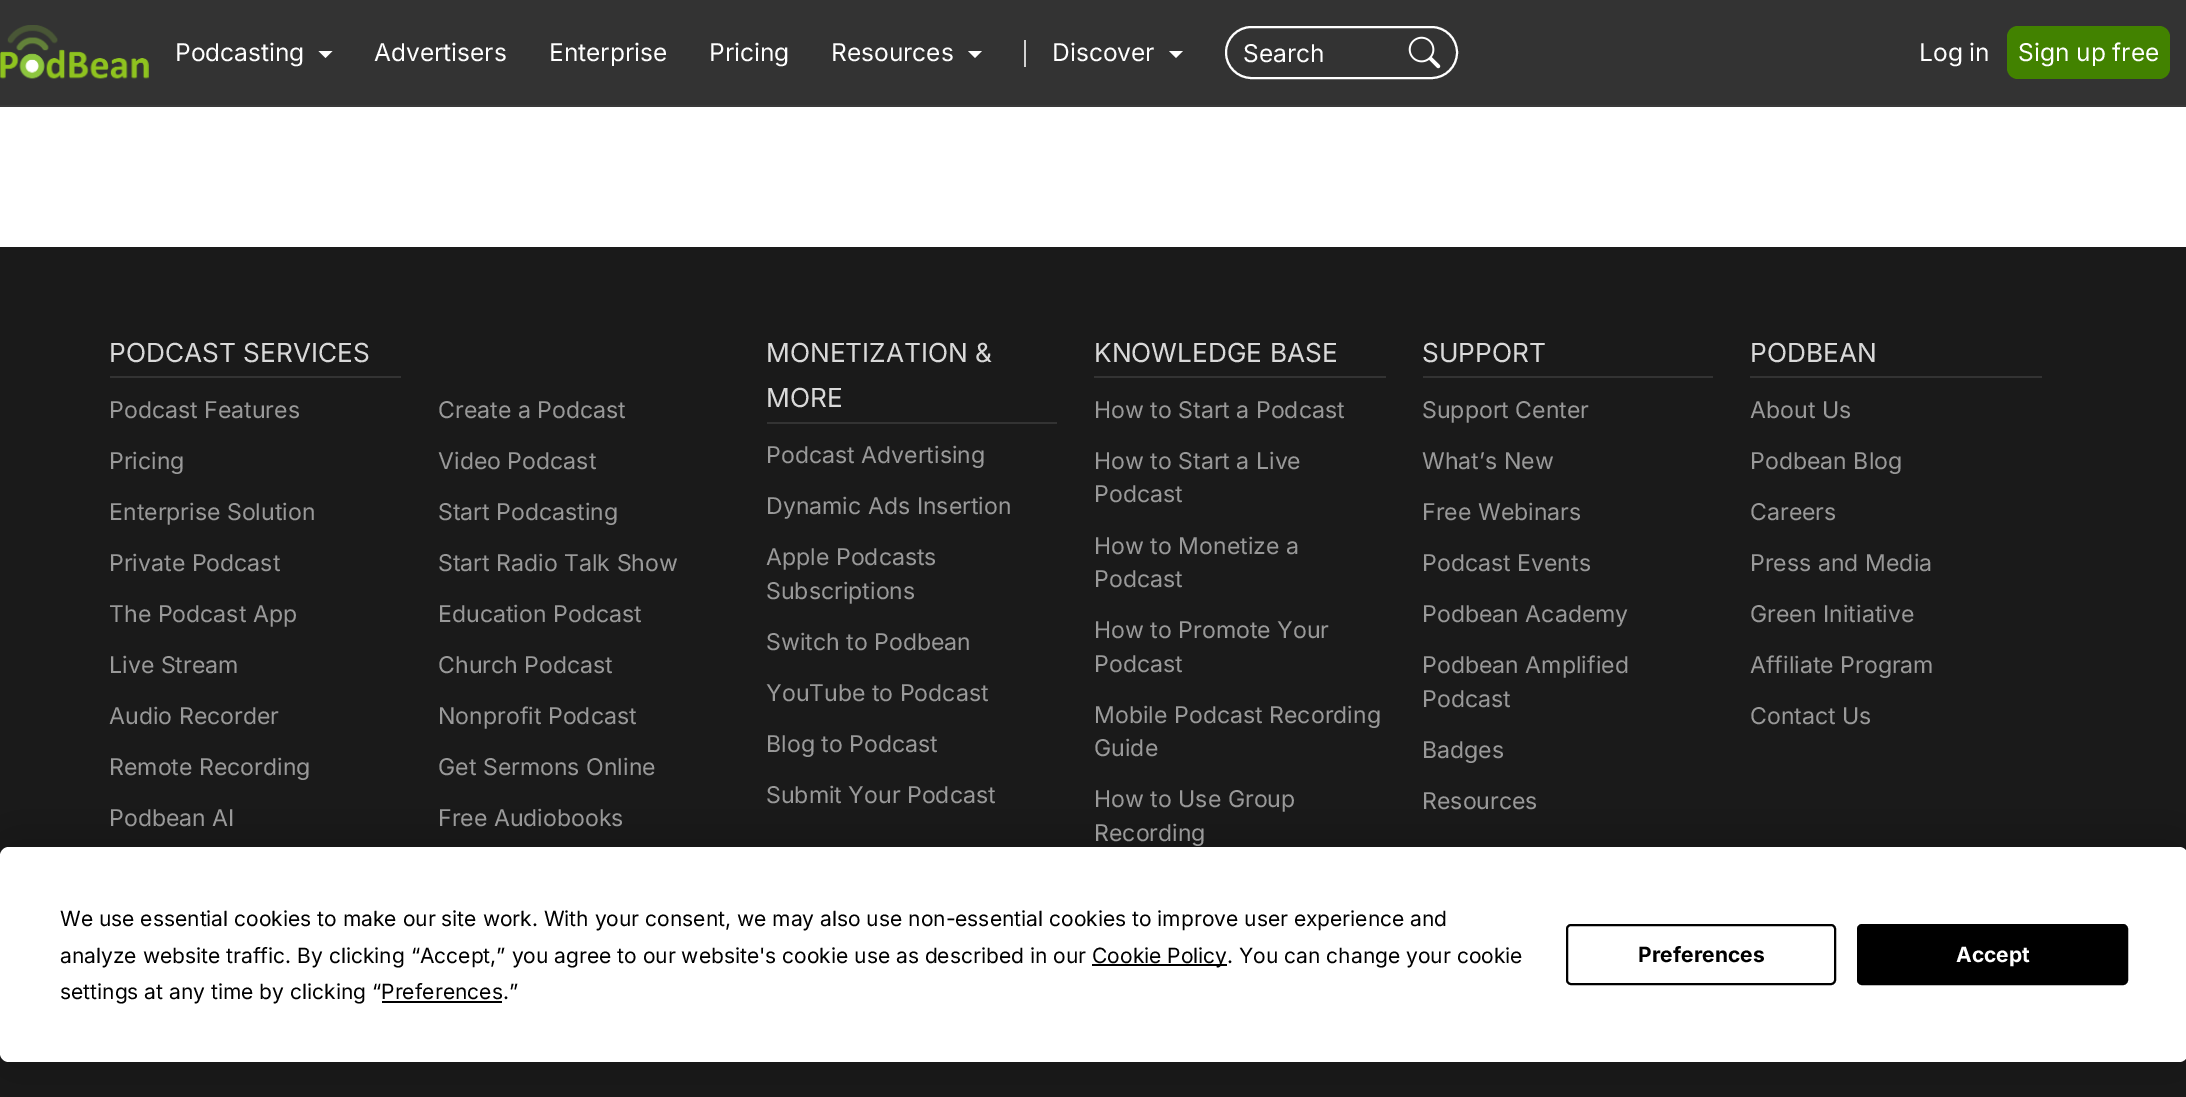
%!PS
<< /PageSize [2186 1097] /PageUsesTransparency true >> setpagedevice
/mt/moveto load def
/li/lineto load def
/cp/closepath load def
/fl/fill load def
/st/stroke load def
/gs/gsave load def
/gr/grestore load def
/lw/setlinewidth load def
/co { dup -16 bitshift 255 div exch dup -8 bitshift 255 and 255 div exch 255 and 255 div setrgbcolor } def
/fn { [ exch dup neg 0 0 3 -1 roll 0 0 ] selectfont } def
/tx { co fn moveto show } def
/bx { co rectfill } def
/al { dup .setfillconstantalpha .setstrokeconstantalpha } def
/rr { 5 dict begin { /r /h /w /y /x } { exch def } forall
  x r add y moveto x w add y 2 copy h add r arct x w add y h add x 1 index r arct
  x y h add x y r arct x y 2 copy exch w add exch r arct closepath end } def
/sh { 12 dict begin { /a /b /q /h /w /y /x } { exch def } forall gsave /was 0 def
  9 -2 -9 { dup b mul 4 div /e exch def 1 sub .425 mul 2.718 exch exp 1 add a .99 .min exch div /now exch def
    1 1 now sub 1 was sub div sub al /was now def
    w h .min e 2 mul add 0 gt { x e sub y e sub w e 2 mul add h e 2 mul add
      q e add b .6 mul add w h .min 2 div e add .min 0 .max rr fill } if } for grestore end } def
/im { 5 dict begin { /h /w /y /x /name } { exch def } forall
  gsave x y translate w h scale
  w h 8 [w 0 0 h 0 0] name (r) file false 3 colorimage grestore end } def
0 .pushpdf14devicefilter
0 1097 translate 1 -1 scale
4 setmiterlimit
0 0 2186 1097 16#FFFFFF bx
0 0 2186 105 16#333333 bx
0 105 2186 2 16#393939 bx
(media/1.raw) 0 25 149 54 im
16#FFFFFF co
318.5 51 mt 332.5 51 li 325.5 58 li cp fl
968 51 mt 982 51 li 975 58 li cp fl
1024 40 2 27 16#D2D2D2 bx
16#FFFFFF co
1169 51 mt 1183 51 li 1176 58 li cp fl
2 lw
1226 27 231 51 25.5 rr st
(media/2.raw) 1408 36 33 33 im
16#428200 co
2007 26 163 53 11 rr fl
0 247 2186 850 16#1A1A1A bx
110 376 291 2 16#333333 bx
767 422 290 2 16#333333 bx
1094 376 292 2 16#333333 bx
1423 376 290 2 16#333333 bx
1750 376 292 2 16#333333 bx
16#000000 co
0 847 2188 215 9 30.5 .25 sh
16#FFFFFF co
0 847 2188 215 9 rr fl
1092 964 135 2 16#000000 bx
382 1001 120 2 16#000000 bx
1567 925 268 59 4 rr st
1858 925 269 59 4 rr gs fl gr
st
(Podcasting) 175 61 /Inter-Regular 24.5 16#FFFFFF tx
(Advertisers) 374 61 /Inter-Regular 24.5 16#FFFFFF tx
(Enterprise) 549 61 /Inter-Regular 24.5 16#FFFFFF tx
(Pricing) 709 61 /Inter-Regular 24.5 16#FFFFFF tx
(Resources) 831 61 /Inter-Regular 24.5 16#FFFFFF tx
(Discover) 1052 61 /Inter-Regular 24.5 16#FFFFFF tx
(Search) 1243 62 /Inter-Regular 24.5 16#FFFFFF tx
(Log in) 1919 61 /Inter-Regular 24.5 16#FFFFFF tx
(Sign up free) 2018 61 /Inter-Regular 24.5 16#FFFFFF tx
(PODCAST SERVICES) 109 362 /Inter-Regular 26.25 16#D9D9D9 tx
(Podcast Features) 109 418 /Inter-Regular 23.1 16#999999 tx
(Pricing) 109 469 /Inter-Regular 23.1 16#999999 tx
(Enterprise Solution) 109 520 /Inter-Regular 23.1 16#999999 tx
(Private Podcast) 109 571 /Inter-Regular 23.1 16#999999 tx
(The Podcast App) 109 622 /Inter-Regular 23.1 16#999999 tx
(Live Stream) 109 673 /Inter-Regular 23.1 16#999999 tx
(Audio Recorder) 109 724 /Inter-Regular 23.1 16#999999 tx
(Remote Recording) 109 775 /Inter-Regular 23.1 16#999999 tx
(Podbean AI) 109 826 /Inter-Regular 23.1 16#999999 tx
(Create a Podcast) 438 418 /Inter-Regular 23.1 16#999999 tx
(Video Podcast) 438 469 /Inter-Regular 23.1 16#999999 tx
(Start Podcasting) 438 520 /Inter-Regular 23.1 16#999999 tx
(Start Radio Talk Show) 438 571 /Inter-Regular 23.1 16#999999 tx
(Education Podcast) 438 622 /Inter-Regular 23.1 16#999999 tx
(Church Podcast) 438 673 /Inter-Regular 23.1 16#999999 tx
(Nonprofit Podcast) 438 724 /Inter-Regular 23.1 16#999999 tx
(Get Sermons Online) 438 775 /Inter-Regular 23.1 16#999999 tx
(Free Audiobooks) 438 826 /Inter-Regular 23.1 16#999999 tx
(MONETIZATION &) 766 362 /Inter-Regular 26.25 16#D9D9D9 tx
(MORE) 766 407 /Inter-Regular 26.25 16#D9D9D9 tx
(Podcast Advertising) 766 463 /Inter-Regular 23.1 16#999999 tx
(Dynamic Ads Insertion) 766 514 /Inter-Regular 23.1 16#999999 tx
(Apple Podcasts) 766 565 /Inter-Regular 23.1 16#999999 tx
(Subscriptions) 766 599 /Inter-Regular 23.1 16#999999 tx
(Switch to Podbean) 766 650 /Inter-Regular 23.1 16#999999 tx
(YouTube to Podcast) 766 701 /Inter-Regular 23.1 16#999999 tx
(Blog to Podcast) 766 752 /Inter-Regular 23.1 16#999999 tx
(Submit Your Podcast) 766 803 /Inter-Regular 23.1 16#999999 tx
(KNOWLEDGE BASE) 1094 362 /Inter-Regular 26.25 16#D9D9D9 tx
(How to Start a Podcast) 1094 418 /Inter-Regular 23.1 16#999999 tx
(How to Start a Live) 1094 469 /Inter-Regular 23.1 16#999999 tx
(Podcast) 1094 502 /Inter-Regular 23.1 16#999999 tx
(How to Monetize a) 1094 554 /Inter-Regular 23.1 16#999999 tx
(Podcast) 1094 587 /Inter-Regular 23.1 16#999999 tx
(How to Promote Your) 1094 638 /Inter-Regular 23.1 16#999999 tx
(Podcast) 1094 672 /Inter-Regular 23.1 16#999999 tx
(Mobile Podcast Recording) 1094 723 /Inter-Regular 23.1 16#999999 tx
(Guide) 1094 756 /Inter-Regular 23.1 16#999999 tx
(How to Use Group) 1094 807 /Inter-Regular 23.1 16#999999 tx
(Recording) 1094 841 /Inter-Regular 23.1 16#999999 tx
(SUPPORT) 1422 362 /Inter-Regular 26.25 16#D9D9D9 tx
(Support Center) 1422 418 /Inter-Regular 23.1 16#999999 tx
(What’s New) 1422 469 /Inter-Regular 23.1 16#999999 tx
(Free Webinars) 1422 520 /Inter-Regular 23.1 16#999999 tx
(Podcast Events) 1422 571 /Inter-Regular 23.1 16#999999 tx
(Podbean Academy) 1422 622 /Inter-Regular 23.1 16#999999 tx
(Podbean Amplified) 1422 673 /Inter-Regular 23.1 16#999999 tx
(Podcast) 1422 707 /Inter-Regular 23.1 16#999999 tx
(Badges) 1422 758 /Inter-Regular 23.1 16#999999 tx
(Resources) 1422 809 /Inter-Regular 23.1 16#999999 tx
(PODBEAN) 1750 362 /Inter-Regular 26.25 16#D9D9D9 tx
(About Us) 1750 418 /Inter-Regular 23.1 16#999999 tx
(Podbean Blog) 1750 469 /Inter-Regular 23.1 16#999999 tx
(Careers) 1750 520 /Inter-Regular 23.1 16#999999 tx
(Press and Media) 1750 571 /Inter-Regular 23.1 16#999999 tx
(Green Initiative) 1750 622 /Inter-Regular 23.1 16#999999 tx
(Affiliate Program) 1750 673 /Inter-Regular 23.1 16#999999 tx
(Contact Us) 1750 724 /Inter-Regular 23.1 16#999999 tx
(We use essential cookies to make our site work. With your consent, we may also use non-essential cookies to improve user experience and) 60 926 /Inter-Regular 21 16#000000 tx
(analyze website traffic. By clicking “Accept,” you agree to our website's cookie use as described in our) 60 963 /Inter-Regular 21 16#000000 tx
(Cookie Policy. You can change your cookie) 1092 963 /Inter-Regular 21 16#000000 tx
(settings at any time by clicking “Preferences.”) 60 999 /Inter-Regular 21 16#000000 tx
(Preferences) 1638 962 /Inter-Bold 21 16#000000 tx
(Accept) 1956 962 /Inter-Bold 21 16#FFFFFF tx
.poppdf14devicefilter showpage
